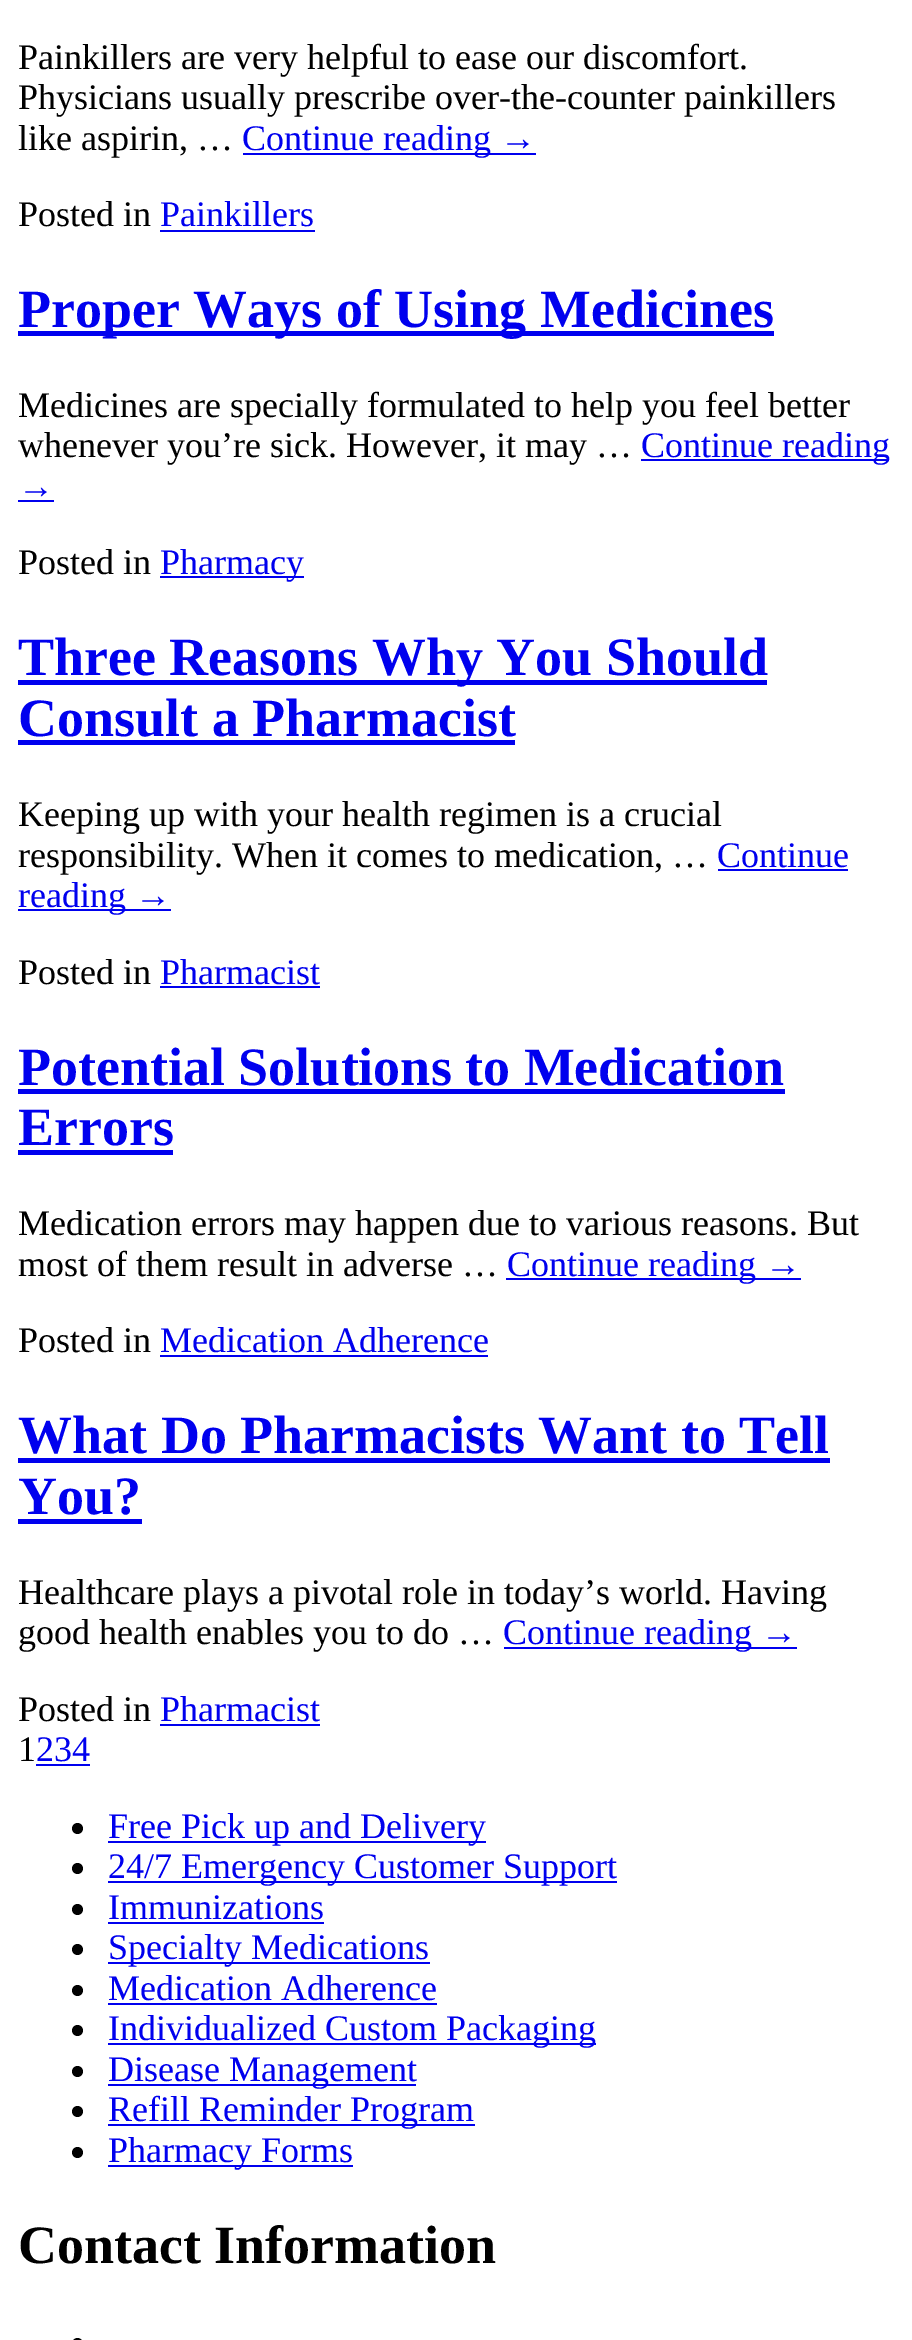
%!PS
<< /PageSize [912 2340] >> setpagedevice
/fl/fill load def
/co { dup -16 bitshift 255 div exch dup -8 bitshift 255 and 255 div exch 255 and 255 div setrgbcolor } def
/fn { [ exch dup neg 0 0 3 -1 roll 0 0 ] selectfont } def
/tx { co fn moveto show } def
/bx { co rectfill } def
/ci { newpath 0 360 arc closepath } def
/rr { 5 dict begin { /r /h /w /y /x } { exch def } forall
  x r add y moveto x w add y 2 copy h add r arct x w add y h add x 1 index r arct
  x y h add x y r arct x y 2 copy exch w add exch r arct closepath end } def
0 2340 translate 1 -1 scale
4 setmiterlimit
0 0 912 2340 16#FFFFFF bx
243 153 293 2 16#0000EE bx
160 230 155 2 16#0000EE bx
18 331 756 5 16#0000EE bx
641 459 248 2 16#0000EE bx
18 500 36 2 16#0000EE bx
160 576 144 2 16#0000EE bx
18 680 749 5 16#0000EE bx
18 740 497 5 16#0000EE bx
718 869 130 2 16#0000EE bx
18 909 153 2 16#0000EE bx
160 986 160 2 16#0000EE bx
18 1089 767 5 16#0000EE bx
18 1150 155 5 16#0000EE bx
506 1278 295 2 16#0000EE bx
160 1355 328 2 16#0000EE bx
18 1458 812 5 16#0000EE bx
18 1519 124 5 16#0000EE bx
504 1647 293 2 16#0000EE bx
160 1724 160 2 16#0000EE bx
36 1764 54 2 16#0000EE bx
16#000000 co
77.5 1828.5 5.5 ci fl
108 1841 378 2 16#0000EE bx
16#000000 co
77.5 1868.5 5.5 ci fl
108 1881 509 2 16#0000EE bx
16#000000 co
77.5 1909.5 5.5 ci fl
108 1922 216 2 16#0000EE bx
16#000000 co
77.5 1949.5 5.5 ci fl
108 1962 322 2 16#0000EE bx
16#000000 co
77.5 1990.5 5.5 ci fl
108 2003 329 2 16#0000EE bx
16#000000 co
77.5 2030.5 5.5 ci fl
108 2043 488 2 16#0000EE bx
16#000000 co
77.5 2071.5 5.5 ci fl
108 2084 308 2 16#0000EE bx
16#000000 co
77.5 2111.5 5.5 ci fl
108 2124 367 2 16#0000EE bx
16#000000 co
77.5 2152.5 5.5 ci fl
108 2165 245 2 16#0000EE bx
16#000000 co
72 2338 11 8 5.5 rr fl
(Painkillers are very helpful to ease our discomfort.) 18 69 /LiberationSerif-Regular 36 16#000000 tx
(Physicians usually prescribe over-the-counter painkillers) 18 109 /LiberationSerif-Regular 36 16#000000 tx
(like aspirin, …) 18 150 /LiberationSerif-Regular 36 16#000000 tx
(Continue reading →) 242 150 /LiberationSerif-Regular 36 16#0000EE tx
(Posted in) 18 226 /LiberationSerif-Regular 36 16#000000 tx
(Painkillers) 160 226 /LiberationSerif-Regular 36 16#0000EE tx
(Proper Ways of Using Medicines) 18 327 /LiberationSerif-Bold 54 16#0000EE tx
(Medicines are specially formulated to help you feel better) 18 417 /LiberationSerif-Regular 36 16#000000 tx
(whenever you’re sick. However, it may …) 18 457 /LiberationSerif-Regular 36 16#000000 tx
(Continue reading) 641 457 /LiberationSerif-Regular 36 16#0000EE tx
(→) 18 498 /LiberationSerif-Regular 36 16#0000EE tx
(Posted in) 18 574 /LiberationSerif-Regular 36 16#000000 tx
(Pharmacy) 160 574 /LiberationSerif-Regular 36 16#0000EE tx
(Three Reasons Why You Should) 18 675 /LiberationSerif-Bold 54 16#0000EE tx
(Consult a Pharmacist) 18 736 /LiberationSerif-Bold 54 16#0000EE tx
(Keeping up with your health regimen is a crucial) 18 826 /LiberationSerif-Regular 36 16#000000 tx
(responsibility. When it comes to medication, …) 18 867 /LiberationSerif-Regular 36 16#000000 tx
(Continue) 717 867 /LiberationSerif-Regular 36 16#0000EE tx
(reading →) 18 907 /LiberationSerif-Regular 36 16#0000EE tx
(Posted in) 18 984 /LiberationSerif-Regular 36 16#000000 tx
(Pharmacist) 160 984 /LiberationSerif-Regular 36 16#0000EE tx
(Potential Solutions to Medication) 18 1085 /LiberationSerif-Bold 54 16#0000EE tx
(Errors) 18 1145 /LiberationSerif-Bold 54 16#0000EE tx
(Medication errors may happen due to various reasons. But) 18 1235 /LiberationSerif-Regular 36 16#000000 tx
(most of them result in adverse …) 18 1276 /LiberationSerif-Regular 36 16#000000 tx
(Continue reading →) 507 1276 /LiberationSerif-Regular 36 16#0000EE tx
(Posted in) 18 1352 /LiberationSerif-Regular 36 16#000000 tx
(Medication Adherence) 160 1352 /LiberationSerif-Regular 36 16#0000EE tx
(What Do Pharmacists Want to Tell) 18 1453 /LiberationSerif-Bold 54 16#0000EE tx
(You?) 18 1514 /LiberationSerif-Bold 54 16#0000EE tx
(Healthcare plays a pivotal role in today’s world. Having) 18 1604 /LiberationSerif-Regular 36 16#000000 tx
(good health enables you to do …) 18 1644 /LiberationSerif-Regular 36 16#000000 tx
(Continue reading →) 503 1644 /LiberationSerif-Regular 36 16#0000EE tx
(Posted in) 18 1721 /LiberationSerif-Regular 36 16#000000 tx
(Pharmacist) 160 1721 /LiberationSerif-Regular 36 16#0000EE tx
(1) 18 1761 /LiberationSerif-Regular 36 16#000000 tx
(234) 36 1761 /LiberationSerif-Regular 36 16#0000EE tx
(Free Pick up and Delivery) 108 1838 /LiberationSerif-Regular 36 16#0000EE tx
(24/7 Emergency Customer Support) 108 1878 /LiberationSerif-Regular 36 16#0000EE tx
(Immunizations) 108 1919 /LiberationSerif-Regular 36 16#0000EE tx
(Specialty Medications) 108 1959 /LiberationSerif-Regular 36 16#0000EE tx
(Medication Adherence) 108 2000 /LiberationSerif-Regular 36 16#0000EE tx
(Individualized Custom Packaging) 108 2040 /LiberationSerif-Regular 36 16#0000EE tx
(Disease Management) 108 2081 /LiberationSerif-Regular 36 16#0000EE tx
(Refill Reminder Program) 108 2121 /LiberationSerif-Regular 36 16#0000EE tx
(Pharmacy Forms) 108 2162 /LiberationSerif-Regular 36 16#0000EE tx
(Contact Information) 18 2263 /LiberationSerif-Bold 54 16#000000 tx
showpage
